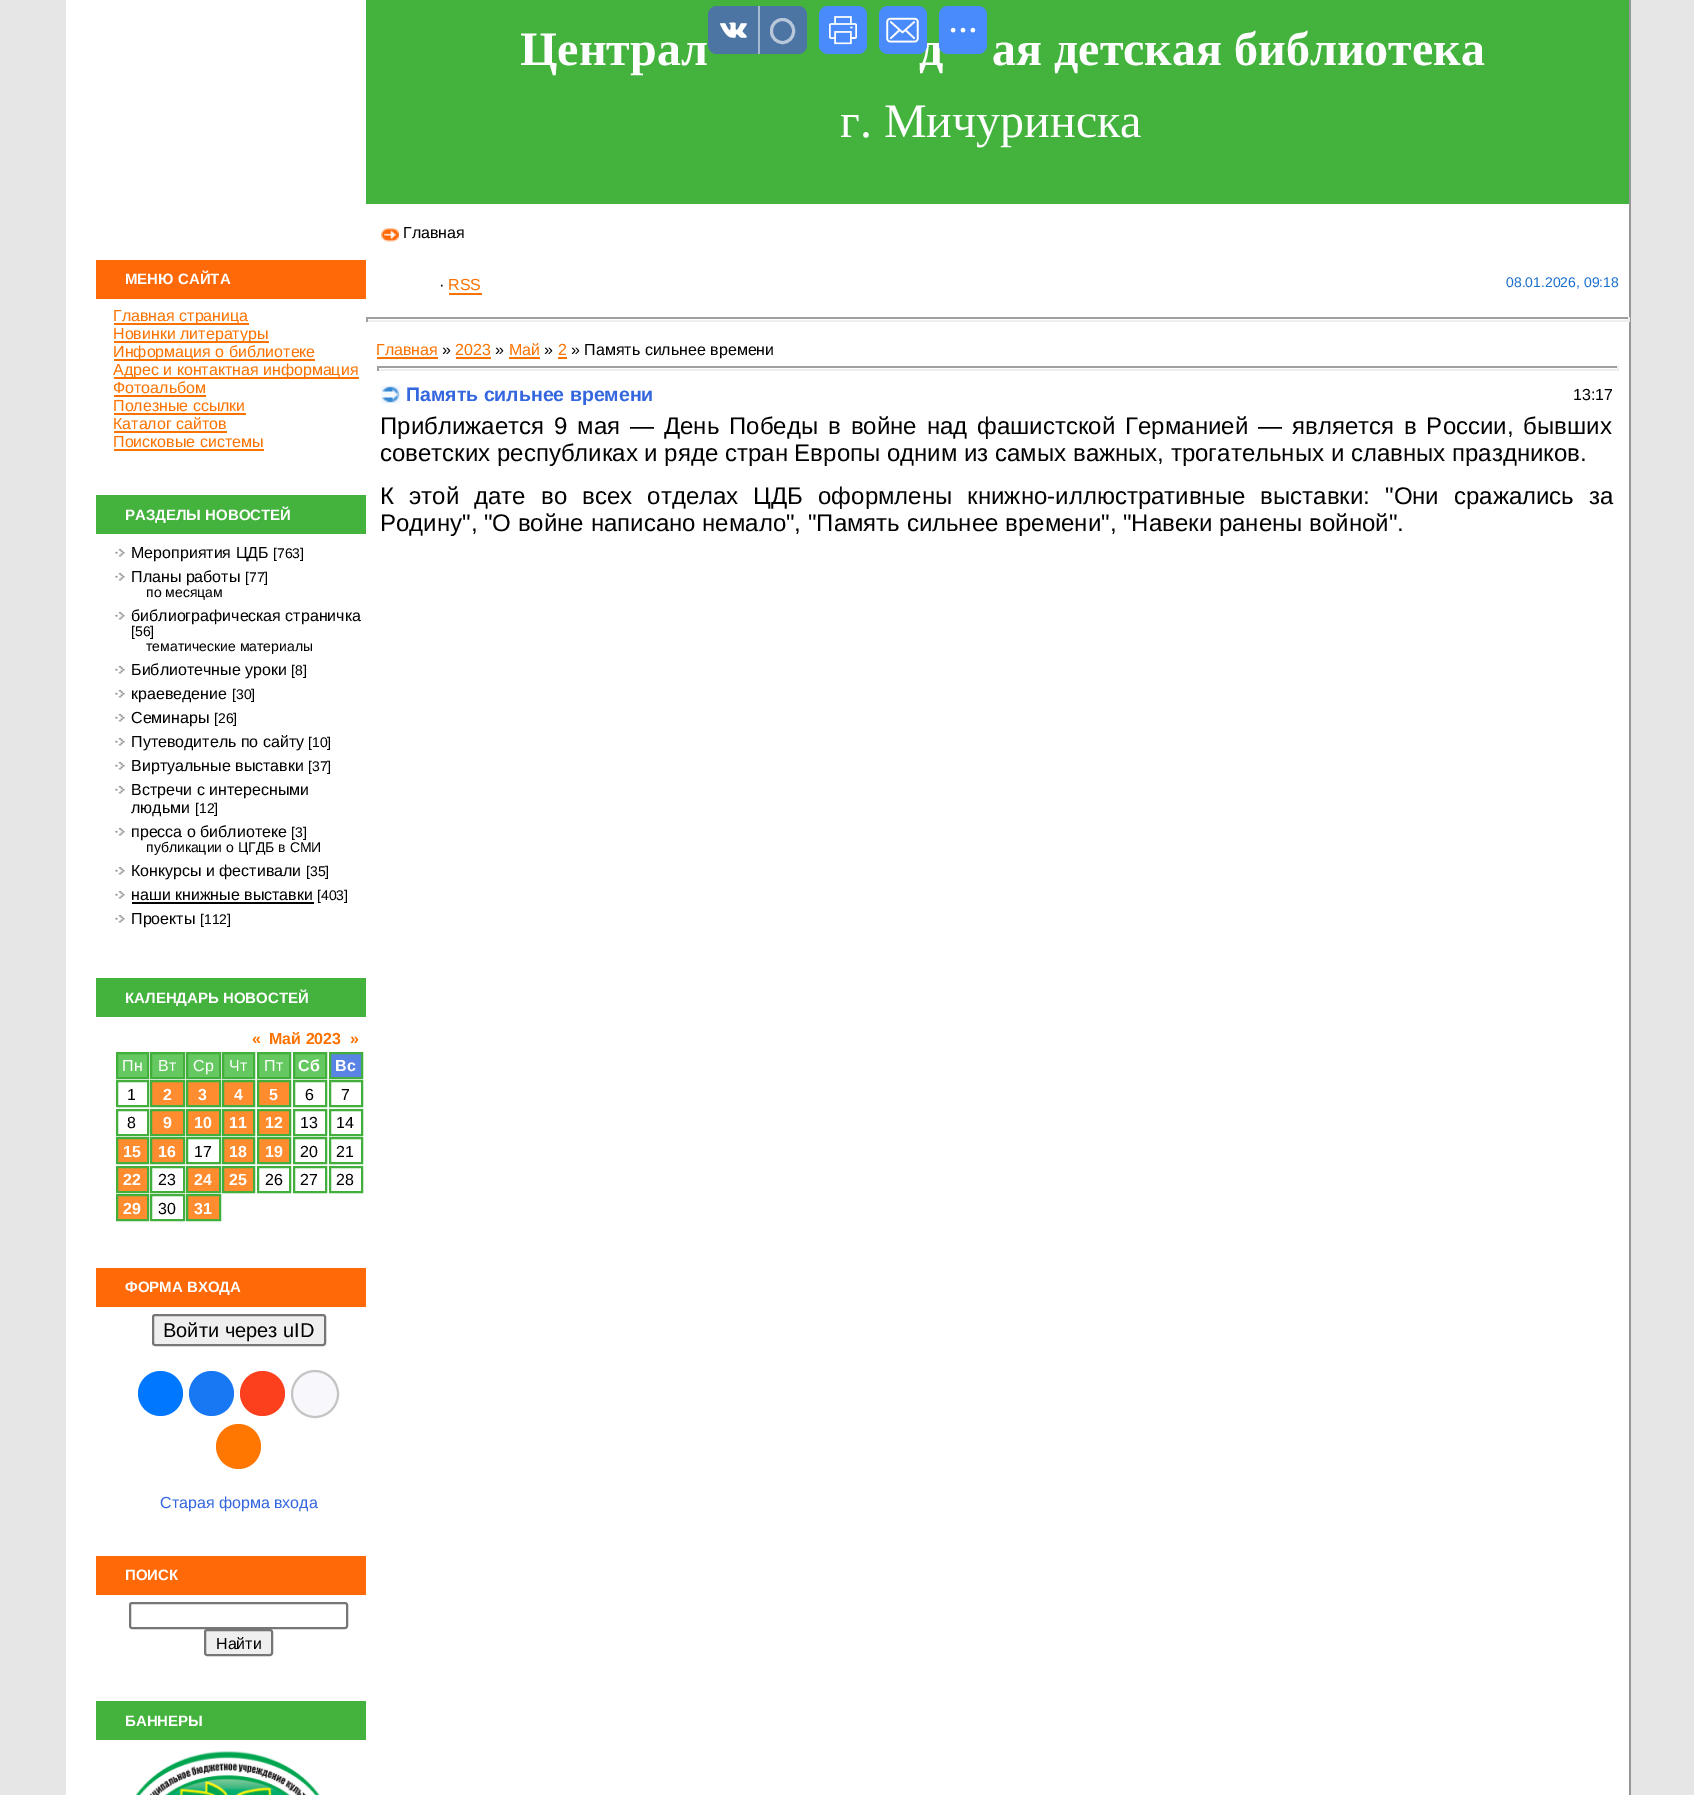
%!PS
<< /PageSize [1694 1795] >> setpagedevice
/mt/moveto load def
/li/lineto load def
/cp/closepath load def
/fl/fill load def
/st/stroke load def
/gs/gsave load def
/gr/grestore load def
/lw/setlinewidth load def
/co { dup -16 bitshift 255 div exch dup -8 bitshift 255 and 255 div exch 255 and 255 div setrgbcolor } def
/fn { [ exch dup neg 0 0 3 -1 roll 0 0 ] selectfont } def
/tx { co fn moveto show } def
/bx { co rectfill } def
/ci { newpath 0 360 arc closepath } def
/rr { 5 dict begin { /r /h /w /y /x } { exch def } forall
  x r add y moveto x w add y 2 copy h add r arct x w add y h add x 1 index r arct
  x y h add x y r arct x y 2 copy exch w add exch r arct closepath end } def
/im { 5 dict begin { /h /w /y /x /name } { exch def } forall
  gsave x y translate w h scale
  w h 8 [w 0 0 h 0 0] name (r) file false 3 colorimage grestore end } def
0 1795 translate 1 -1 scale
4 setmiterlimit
0 0 1694 1795 16#E6E6E6 bx
366 0 1263 204 16#44B33E bx
16#4D75A3 co
708 6 99 48 9 rr fl
(media/1.raw) 720 22 27 16 im
758 6 2 48 16#A6BAD1 bx
16#B8C8DA co
3 lw
771.5 19.5 22 23 11 rr st
16#498BFA co
819 6 48 48 9 rr fl
(media/2.raw) 829 16 28 29 im
1629 0 2 1795 16#979797 bx
66 0 300 1795 16#FFFFFF bx
366 204 1263 1591 16#FFFFFF bx
(media/5.raw) 381 228 18 14 im
96 260 270 39 16#FF6907 bx
114 323 135 2 16#FC7200 bx
114 341 155 2 16#FC7200 bx
114 359 201 2 16#FC7200 bx
114 377 245 2 16#FC7200 bx
114 395 92 2 16#FC7200 bx
114 413 132 2 16#FC7200 bx
114 431 113 2 16#FC7200 bx
114 449 150 2 16#FC7200 bx
96 495 270 39 16#44B33E bx
(media/6.raw) 115 549 10 8 im
(media/6.raw) 115 573 10 8 im
(media/6.raw) 115 612 10 8 im
(media/6.raw) 115 666 10 8 im
(media/6.raw) 115 690 10 8 im
(media/6.raw) 115 714 10 8 im
(media/6.raw) 115 738 10 8 im
(media/6.raw) 115 762 10 8 im
(media/6.raw) 115 786 10 8 im
(media/6.raw) 115 828 10 8 im
(media/6.raw) 115 867 10 8 im
(media/6.raw) 115 891 10 8 im
132 902 182 2 16#000000 bx
(media/6.raw) 115 915 10 8 im
96 978 270 39 16#44B33E bx
16#65C860 co
117 1053 mt 148 1053 li 148 1078 li 117 1078 li cp gs fl gr
16#42AE3C co
2 lw
st
16#65C860 co
151 1053 mt 184 1053 li 184 1078 li 151 1078 li cp gs fl gr
16#42AE3C co
st
16#65C860 co
187 1053 mt 220 1053 li 220 1078 li 187 1078 li cp gs fl gr
16#42AE3C co
st
16#65C860 co
223 1053 mt 254 1053 li 254 1078 li 223 1078 li cp gs fl gr
16#42AE3C co
st
16#65C860 co
258 1053 mt 290 1053 li 290 1078 li 258 1078 li cp gs fl gr
16#42AE3C co
st
16#65C860 co
294 1053 mt 326 1053 li 326 1078 li 294 1078 li cp gs fl gr
16#42AE3C co
st
16#5A84E4 co
330 1053 mt 362 1053 li 362 1078 li 330 1078 li cp gs fl gr
16#42AE3C co
st
117 1081 31 25 rectstroke
16#FF8C2F co
151 1081 mt 184 1081 li 184 1106 li 151 1106 li cp gs fl gr
16#42AE3C co
st
16#FF8C2F co
187 1081 mt 220 1081 li 220 1106 li 187 1106 li cp gs fl gr
16#42AE3C co
st
16#FF8C2F co
223 1081 mt 254 1081 li 254 1106 li 223 1106 li cp gs fl gr
16#42AE3C co
st
16#FF8C2F co
258 1081 mt 290 1081 li 290 1106 li 258 1106 li cp gs fl gr
16#42AE3C co
st
294 1081 32 25 rectstroke
330 1081 32 25 rectstroke
117 1110 31 25 rectstroke
16#FF8C2F co
151 1110 mt 184 1110 li 184 1135 li 151 1135 li cp gs fl gr
16#42AE3C co
st
16#FF8C2F co
187 1110 mt 220 1110 li 220 1135 li 187 1135 li cp gs fl gr
16#42AE3C co
st
16#FF8C2F co
223 1110 mt 254 1110 li 254 1135 li 223 1135 li cp gs fl gr
16#42AE3C co
st
16#FF8C2F co
258 1110 mt 290 1110 li 290 1135 li 258 1135 li cp gs fl gr
16#42AE3C co
st
294 1110 32 25 rectstroke
330 1110 32 25 rectstroke
16#FF8C2F co
117 1138 mt 148 1138 li 148 1163 li 117 1163 li cp gs fl gr
16#42AE3C co
st
16#FF8C2F co
151 1138 mt 184 1138 li 184 1163 li 151 1163 li cp gs fl gr
16#42AE3C co
st
187 1138 33 25 rectstroke
16#FF8C2F co
223 1138 mt 254 1138 li 254 1163 li 223 1163 li cp gs fl gr
16#42AE3C co
st
16#FF8C2F co
258 1138 mt 290 1138 li 290 1163 li 258 1163 li cp gs fl gr
16#42AE3C co
st
294 1138 32 25 rectstroke
330 1138 32 25 rectstroke
16#FF8C2F co
117 1167 mt 148 1167 li 148 1192 li 117 1192 li cp gs fl gr
16#42AE3C co
st
151 1167 33 25 rectstroke
16#FF8C2F co
187 1167 mt 220 1167 li 220 1192 li 187 1192 li cp gs fl gr
16#42AE3C co
st
16#FF8C2F co
223 1167 mt 254 1167 li 254 1192 li 223 1192 li cp gs fl gr
16#42AE3C co
st
258 1167 32 25 rectstroke
294 1167 32 25 rectstroke
330 1167 32 25 rectstroke
16#FF8C2F co
117 1195 mt 148 1195 li 148 1220 li 117 1220 li cp gs fl gr
16#42AE3C co
st
151 1195 33 25 rectstroke
16#FF8C2F co
187 1195 mt 220 1195 li 220 1220 li 187 1220 li cp gs fl gr
16#42AE3C co
st
96 1268 270 39 16#FF6907 bx
16#EFEFEF co
153 1315 172 30 2 rr gs fl gr
16#767676 co
st
16#0077FF co
160.5 1393.5 22.5 ci fl
16#1877F2 co
211.5 1393.5 22.5 ci fl
16#FC3F1D co
262.5 1393.5 22.5 ci fl
16#F8F8FC co
315 1394 23 ci gs fl gr
16#C4C4C4 co
st
16#FF7700 co
238.5 1446.5 22.5 ci fl
96 1556 270 39 16#FF6907 bx
16#767676 co
130 1603 217 25 2 rr st
16#EFEFEF co
205 1630 67 25 2 rr gs fl gr
16#767676 co
st
96 1701 270 39 16#44B33E bx
(media/7.raw) 135 1751 185 44 im
449 293 33 2 16#FC7200 bx
366 317 1263 2 16#9F9F9F bx
1628 317 2 5 16#EEEEEE bx
366 320 1263 2 16#EEEEEE bx
366 317 2 5 16#9F9F9F bx
377 357 61 2 16#FC7200 bx
456 357 35 2 16#FC7200 bx
509 357 31 2 16#FC7200 bx
558 357 9 2 16#FC7200 bx
377 366 1242 2 16#9F9F9F bx
1617 366 2 5 16#EEEEEE bx
377 369 1242 2 16#EEEEEE bx
377 366 2 5 16#9F9F9F bx
(media/8.raw) 381 385 20 19 im
(Централ) 520 65 /LiberationSerif-Bold 48 16#FFFFFF tx
(д) 919 65 /LiberationSerif-Bold 48 16#FFFFFF tx
16#498BFA co
939 6 48 48 9 rr fl
(media/4.raw) 950 27 26 6 im
879 6 48 48 9 rr fl
(media/3.raw) 886 17 33 26 im
(ая детская библиотека) 992 65 /LiberationSerif-Bold 48 16#FFFFFF tx
(г. Мичуринска) 840 137 /LiberationSerif-Regular 48 16#FFFFFF tx
(Главная) 403 238 /LiberationSans-Regular 16 16#000000 tx
(МЕНЮ САЙТА) 125 284 /LiberationSans-Bold 15 16#FFFFFF tx
(Главная страница) 113 321 /LiberationSans-Regular 16 16#FC7200 tx
(Новинки литературы) 113 339 /LiberationSans-Regular 16 16#FC7200 tx
(Информация о библиотеке) 113 357 /LiberationSans-Regular 16 16#FC7200 tx
(Адрес и контактная информация) 113 375 /LiberationSans-Regular 16 16#FC7200 tx
(Фотоальбом) 113 393 /LiberationSans-Regular 16 16#FC7200 tx
(Полезные ссылки) 113 411 /LiberationSans-Regular 16 16#FC7200 tx
(Каталог сайтов) 113 429 /LiberationSans-Regular 16 16#FC7200 tx
(Поисковые системы) 113 447 /LiberationSans-Regular 16 16#FC7200 tx
(РАЗДЕЛЫ НОВОСТЕЙ) 125 520 /LiberationSans-Bold 15 16#FFFFFF tx
(Мероприятия ЦДБ) 131 558 /LiberationSans-Regular 16 16#000000 tx
([763]) 273 558 /LiberationSans-Regular 14 16#000000 tx
(Планы работы) 131 582 /LiberationSans-Regular 16 16#000000 tx
([77]) 245 582 /LiberationSans-Regular 14 16#000000 tx
(по месяцам) 146 597 /LiberationSans-Regular 14 16#000000 tx
(библиографическая страничка) 131 621 /LiberationSans-Regular 16 16#000000 tx
([56]) 131 636 /LiberationSans-Regular 14 16#000000 tx
(тематические материалы) 146 651 /LiberationSans-Regular 14 16#000000 tx
(Библиотечные уроки) 131 675 /LiberationSans-Regular 16 16#000000 tx
([8]) 291 675 /LiberationSans-Regular 14 16#000000 tx
(краеведение) 131 699 /LiberationSans-Regular 16 16#000000 tx
([30]) 232 699 /LiberationSans-Regular 14 16#000000 tx
(Семинары) 131 723 /LiberationSans-Regular 16 16#000000 tx
([26]) 214 723 /LiberationSans-Regular 14 16#000000 tx
(Путеводитель по сайту) 131 747 /LiberationSans-Regular 16 16#000000 tx
([10]) 308 747 /LiberationSans-Regular 14 16#000000 tx
(Виртуальные выставки) 131 771 /LiberationSans-Regular 16 16#000000 tx
([37]) 308 771 /LiberationSans-Regular 14 16#000000 tx
(Встречи с интересными) 131 795 /LiberationSans-Regular 16 16#000000 tx
(людьми) 131 813 /LiberationSans-Regular 16 16#000000 tx
([12]) 195 813 /LiberationSans-Regular 14 16#000000 tx
(пресса о библиотеке) 131 837 /LiberationSans-Regular 16 16#000000 tx
([3]) 291 837 /LiberationSans-Regular 14 16#000000 tx
(публикации о ЦГДБ в СМИ) 146 852 /LiberationSans-Regular 14 16#000000 tx
(Конкурсы и фестивали) 131 876 /LiberationSans-Regular 16 16#000000 tx
([35]) 306 876 /LiberationSans-Regular 14 16#000000 tx
(наши книжные выставки) 131 900 /LiberationSans-Regular 16 16#000000 tx
([403]) 317 900 /LiberationSans-Regular 14 16#000000 tx
(Проекты) 131 924 /LiberationSans-Regular 16 16#000000 tx
([112]) 200 924 /LiberationSans-Regular 14 16#000000 tx
(КАЛЕНДАРЬ НОВОСТЕЙ) 125 1003 /LiberationSans-Bold 15 16#FFFFFF tx
(«) 252 1044 /LiberationSans-Bold 16 16#FC7200 tx
(Май 2023) 269 1044 /LiberationSans-Bold 16 16#FC7200 tx
(») 350 1044 /LiberationSans-Bold 16 16#FC7200 tx
(Пн) 122 1071 /LiberationSans-Regular 16 16#FFFFFF tx
(Вт) 158 1071 /LiberationSans-Regular 16 16#FFFFFF tx
(Ср) 193 1071 /LiberationSans-Regular 16 16#FFFFFF tx
(Чт) 229 1071 /LiberationSans-Regular 16 16#FFFFFF tx
(Пт) 264 1071 /LiberationSans-Regular 16 16#FFFFFF tx
(Сб) 298 1071 /LiberationSans-Bold 16 16#FFFFFF tx
(Вс) 335 1071 /LiberationSans-Bold 16 16#FFFFFF tx
(1) 127 1100 /LiberationSans-Regular 16 16#000000 tx
(2) 163 1100 /LiberationSans-Bold 16 16#FFFFFF tx
(3) 198 1100 /LiberationSans-Bold 16 16#FFFFFF tx
(4) 234 1100 /LiberationSans-Bold 16 16#FFFFFF tx
(5) 269 1100 /LiberationSans-Bold 16 16#FFFFFF tx
(6) 305 1100 /LiberationSans-Regular 16 16#000000 tx
(7) 341 1100 /LiberationSans-Regular 16 16#000000 tx
(8) 127 1128 /LiberationSans-Regular 16 16#000000 tx
(9) 163 1128 /LiberationSans-Bold 16 16#FFFFFF tx
(10) 194 1128 /LiberationSans-Bold 16 16#FFFFFF tx
(11) 229 1128 /LiberationSans-Bold 16 16#FFFFFF tx
(12) 265 1128 /LiberationSans-Bold 16 16#FFFFFF tx
(13) 300 1128 /LiberationSans-Regular 16 16#000000 tx
(14) 336 1128 /LiberationSans-Regular 16 16#000000 tx
(15) 123 1157 /LiberationSans-Bold 16 16#FFFFFF tx
(16) 158 1157 /LiberationSans-Bold 16 16#FFFFFF tx
(17) 194 1157 /LiberationSans-Regular 16 16#000000 tx
(18) 229 1157 /LiberationSans-Bold 16 16#FFFFFF tx
(19) 265 1157 /LiberationSans-Bold 16 16#FFFFFF tx
(20) 300 1157 /LiberationSans-Regular 16 16#000000 tx
(21) 336 1157 /LiberationSans-Regular 16 16#000000 tx
(22) 123 1185 /LiberationSans-Bold 16 16#FFFFFF tx
(23) 158 1185 /LiberationSans-Regular 16 16#000000 tx
(24) 194 1185 /LiberationSans-Bold 16 16#FFFFFF tx
(25) 229 1185 /LiberationSans-Bold 16 16#FFFFFF tx
(26) 265 1185 /LiberationSans-Regular 16 16#000000 tx
(27) 300 1185 /LiberationSans-Regular 16 16#000000 tx
(28) 336 1185 /LiberationSans-Regular 16 16#000000 tx
(29) 123 1214 /LiberationSans-Bold 16 16#FFFFFF tx
(30) 158 1214 /LiberationSans-Regular 16 16#000000 tx
(31) 194 1214 /LiberationSans-Bold 16 16#FFFFFF tx
(ФОРМА ВХОДА) 125 1292 /LiberationSans-Bold 15 16#FFFFFF tx
(Войти через uID) 163 1337 /LiberationSans-Regular 20 16#000000 tx
(Старая форма входа) 160 1508 /LiberationSans-Regular 16 16#3466DE tx
(ПОИСК) 125 1580 /LiberationSans-Bold 15 16#FFFFFF tx
(Найти) 216 1649 /LiberationSans-Regular 16 16#000000 tx
(БАННЕРЫ) 125 1726 /LiberationSans-Bold 15 16#FFFFFF tx
(·) 439 290 /LiberationSans-Regular 16 16#000000 tx
(RSS) 448 290 /LiberationSans-Regular 16 16#FC7200 tx
(08.01.2026, 09:18) 1506 287 /LiberationSans-Regular 14 16#1A6FCD tx
(Главная) 376 355 /LiberationSans-Regular 16 16#FC7200 tx
(») 442 355 /LiberationSans-Regular 16 16#000000 tx
(2023) 455 355 /LiberationSans-Regular 16 16#FC7200 tx
(») 495 355 /LiberationSans-Regular 16 16#000000 tx
(Май) 509 355 /LiberationSans-Regular 16 16#FC7200 tx
(») 544 355 /LiberationSans-Regular 16 16#000000 tx
(2) 558 355 /LiberationSans-Regular 16 16#FC7200 tx
(» Память сильнее времени) 571 355 /LiberationSans-Regular 16 16#000000 tx
(Память сильнее времени) 406 401 /LiberationSans-Bold 19.5 16#3466DE tx
(13:17) 1573 400 /LiberationSans-Regular 16 16#000000 tx
/LiberationSans-Regular 24 fn
380 434 mt 3.25 0 32 (Приближается 9 мая — День Победы в войне над фашистской Германией — является в России, бывших) widthshow
(советских республиках и ряде стран Европы одним из самых важных, трогательных и славных праздников.) 380 461 /LiberationSans-Regular 24 16#000000 tx
380 504 mt 8.4 0 32 (К этой дате во всех отделах ЦДБ оформлены книжно-иллюстративные выставки: "Они сражались за) widthshow
(Родину", "О войне написано немало", "Память сильнее времени", "Навеки ранены войной".) 380 531 /LiberationSans-Regular 24 16#000000 tx
showpage
